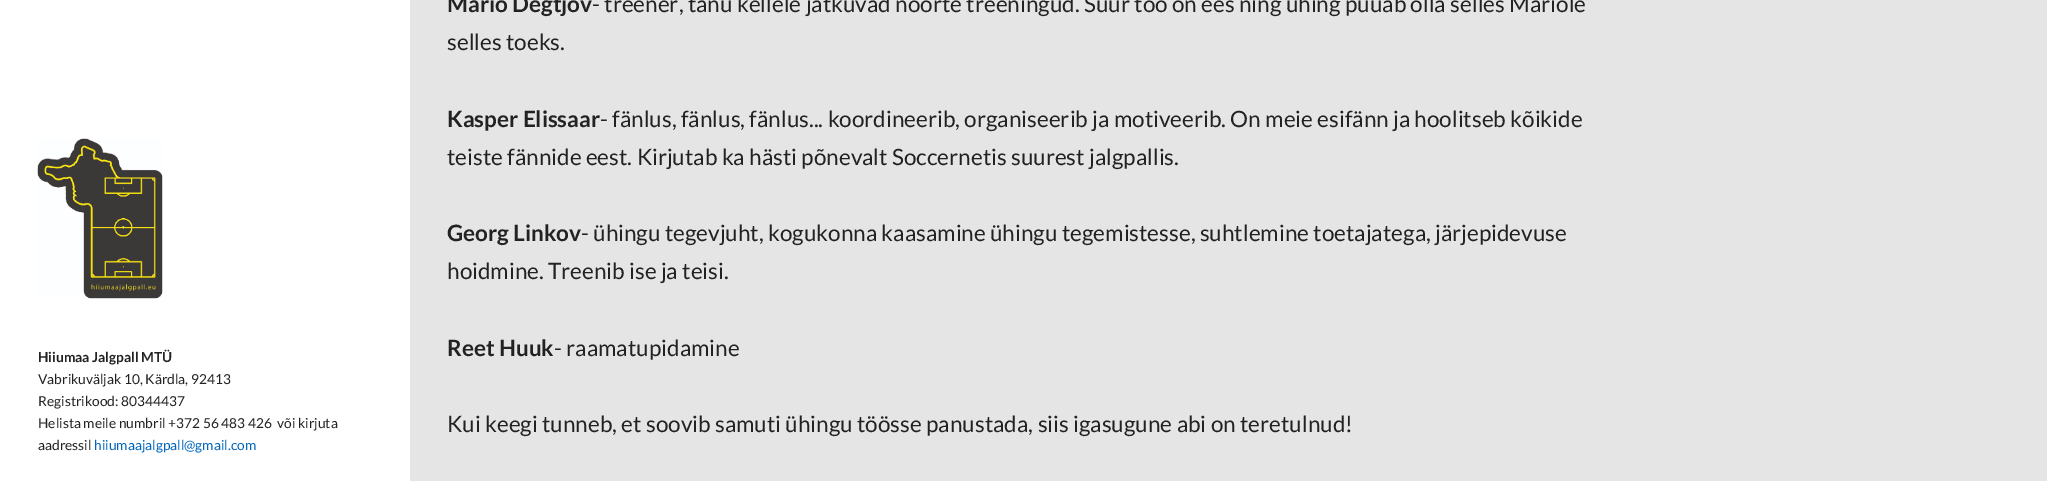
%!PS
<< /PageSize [2047 481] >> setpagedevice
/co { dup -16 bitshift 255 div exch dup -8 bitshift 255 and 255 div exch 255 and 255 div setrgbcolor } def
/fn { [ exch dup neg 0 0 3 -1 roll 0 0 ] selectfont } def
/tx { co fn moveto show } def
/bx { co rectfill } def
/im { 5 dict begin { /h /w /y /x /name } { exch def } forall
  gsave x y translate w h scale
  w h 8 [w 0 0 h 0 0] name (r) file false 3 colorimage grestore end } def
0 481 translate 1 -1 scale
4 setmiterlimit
0 0 2047 481 16#FFFFFF bx
410 0 1637 481 16#E5E5E5 bx
(media/1.raw) 37 138 126 161 im
(Hiiumaa Jalgpall MTÜ) 38 362 /Lato-Bold 13.75 16#222222 tx
(Vabrikuväljak 10, Kärdla, 92413) 38 384 /Lato-Regular 13.75 16#222222 tx
(Registrikood: 80344437) 38 406 /Lato-Regular 13.75 16#222222 tx
(Helista meile numbril +372 56 483 426  või kirjuta) 38 428 /Lato-Regular 13.75 16#222222 tx
(aadressil) 38 450 /Lato-Regular 13.75 16#222222 tx
(hiiumaajalgpall@gmail.com) 94 450 /Lato-Regular 13.75 16#0066BB tx
(Mario Degtjov) 447 12 /Lato-Bold 22.5 16#222222 tx
(- treener, tänu kellele jätkuvad noorte treeningud. Suur töö on ees ning ühing püüab olla selles Mariole) 592 12 /Lato-Regular 22.5 16#222222 tx
(selles toeks.) 447 50 /Lato-Regular 22.5 16#222222 tx
(Kasper Elissaar) 447 127 /Lato-Bold 22.5 16#222222 tx
(- fänlus, fänlus, fänlus... koordineerib, organiseerib ja motiveerib. On meie esifänn ja hoolitseb kõikide) 600 127 /Lato-Regular 22.5 16#222222 tx
(teiste fännide eest. Kirjutab ka hästi põnevalt Soccernetis suurest jalgpallis.) 447 165 /Lato-Regular 22.5 16#222222 tx
(Georg Linkov) 447 241 /Lato-Bold 22.5 16#222222 tx
(- ühingu tegevjuht, kogukonna kaasamine ühingu tegemistesse, suhtlemine toetajatega, järjepidevuse) 581 241 /Lato-Regular 22.5 16#222222 tx
(hoidmine. Treenib ise ja teisi.) 447 279 /Lato-Regular 22.5 16#222222 tx
(Reet Huuk) 447 356 /Lato-Bold 22.5 16#222222 tx
(- raamatupidamine) 554 356 /Lato-Regular 22.5 16#222222 tx
(Kui keegi tunneb, et soovib samuti ühingu töösse panustada, siis igasugune abi on teretulnud!) 447 432 /Lato-Regular 22.5 16#222222 tx
showpage
